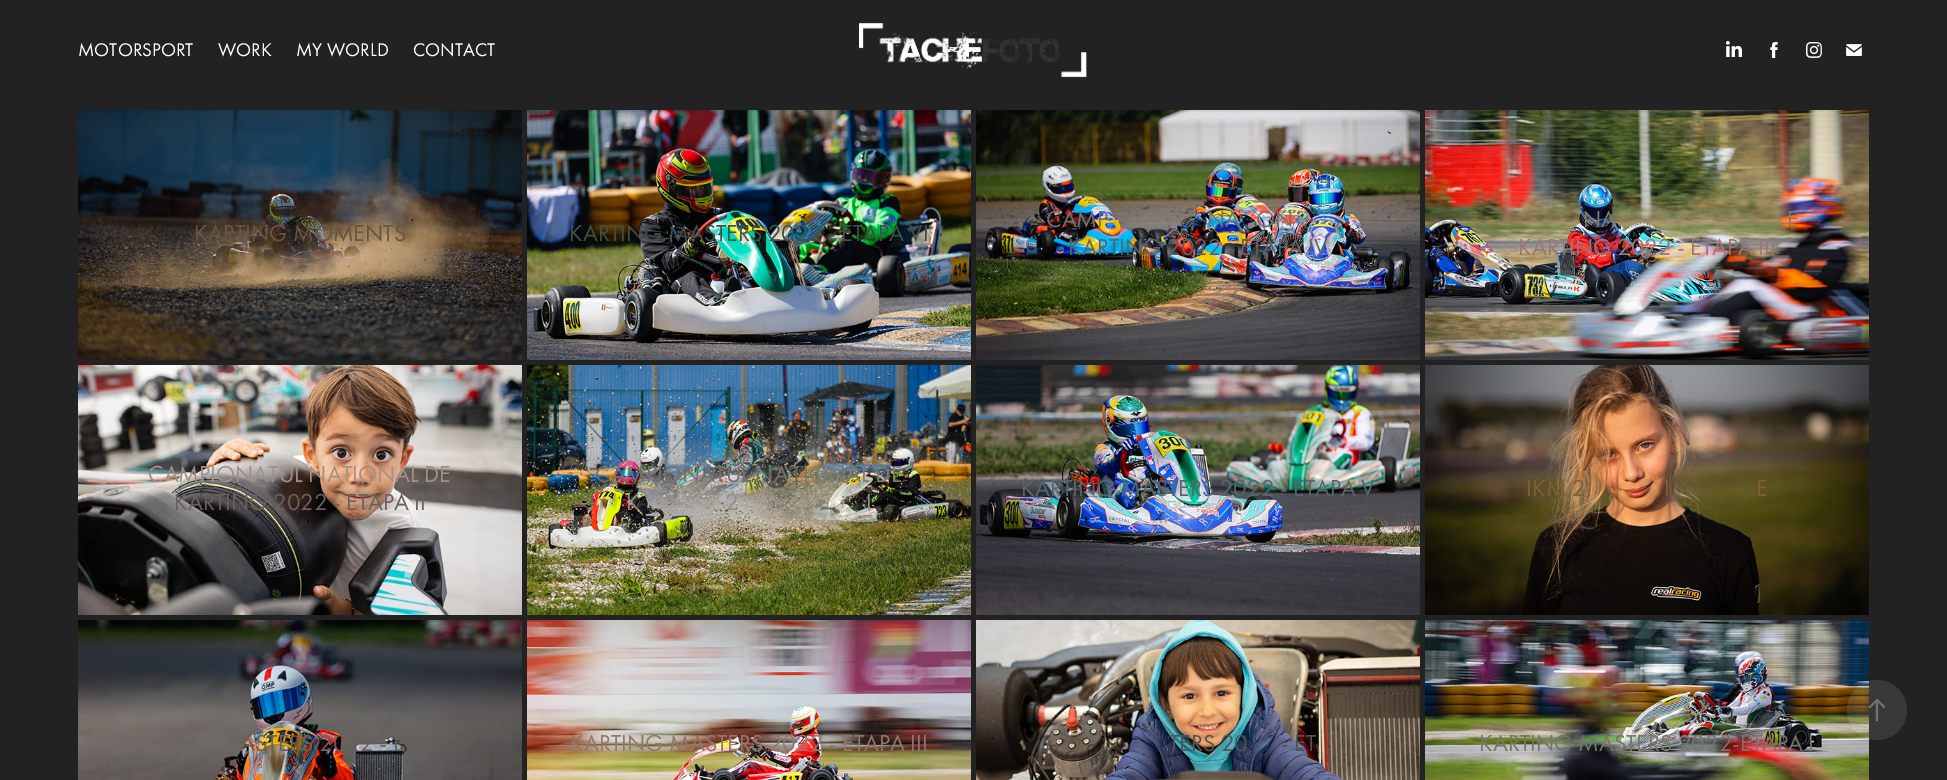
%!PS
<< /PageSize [1947 780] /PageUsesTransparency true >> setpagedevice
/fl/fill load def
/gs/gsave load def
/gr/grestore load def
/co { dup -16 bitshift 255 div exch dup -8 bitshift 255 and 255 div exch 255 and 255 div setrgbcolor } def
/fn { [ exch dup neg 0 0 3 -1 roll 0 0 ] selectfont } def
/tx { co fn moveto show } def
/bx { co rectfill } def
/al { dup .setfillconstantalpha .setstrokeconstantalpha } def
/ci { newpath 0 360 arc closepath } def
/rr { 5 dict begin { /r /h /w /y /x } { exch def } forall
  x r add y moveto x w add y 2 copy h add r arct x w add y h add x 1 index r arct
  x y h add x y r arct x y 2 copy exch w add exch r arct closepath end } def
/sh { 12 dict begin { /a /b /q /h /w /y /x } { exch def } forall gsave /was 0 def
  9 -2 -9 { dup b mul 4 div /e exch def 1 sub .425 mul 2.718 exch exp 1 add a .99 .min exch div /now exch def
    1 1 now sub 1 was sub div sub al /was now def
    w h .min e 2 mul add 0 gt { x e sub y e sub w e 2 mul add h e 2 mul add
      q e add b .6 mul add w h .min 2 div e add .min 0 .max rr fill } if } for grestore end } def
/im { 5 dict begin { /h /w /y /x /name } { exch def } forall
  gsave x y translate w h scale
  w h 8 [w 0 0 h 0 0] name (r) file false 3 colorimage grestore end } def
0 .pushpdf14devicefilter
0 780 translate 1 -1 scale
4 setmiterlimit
0 0 1947 780 16#222222 bx
(media/6.raw) 78 110 444 250 im
(media/7.raw) 527 110 444 250 im
(media/8.raw) 976 110 444 250 im
(media/9.raw) 1425 110 444 250 im
gs
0 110 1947 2 rectclip
16#000000 co
0 1 1947 110 0 1.5 .1 sh
gr
(media/1.raw) 859 23 228 55 im
(media/2.raw) 1726 41 16 16 im
(media/3.raw) 1770 42 8 16 im
(media/4.raw) 1806 42 16 16 im
(media/5.raw) 1846 44 16 12 im
(media/10.raw) 78 365 444 250 im
(media/11.raw) 527 365 444 250 im
(media/12.raw) 976 365 444 250 im
(media/13.raw) 1425 365 444 250 im
(media/14.raw) 78 620 444 160 im
(media/15.raw) 527 620 444 160 im
(media/16.raw) 976 620 444 160 im
(media/17.raw) 1425 620 444 160 im
0.1 al
16#FFFFFF co
1877 710 30 ci fl
1 al
(media/18.raw) 1868 699 18 23 im
(MOTORSPORT) 78 56 /FuturaPT-Regular 19 16#FFFFFF tx
(WORK) 218 56 /FuturaPT-Regular 19 16#FFFFFF tx
(MY WORLD) 296 56 /FuturaPT-Regular 19 16#FFFFFF tx
(CONTACT) 413 56 /FuturaPT-Regular 19 16#FFFFFF tx
(KARTING MOMENTS) 194 241 /FuturaPT-Regular 24 16#675541 tx
(KARTING MASTERS 2022 - ETAPA VI) 569 241 /FuturaPT-Regular 24 16#3C5243 tx
(CAMP) 1046 227 /FuturaPT-Regular 24 16#747072 tx
(NA) 1207 227 /FuturaPT-Regular 24 16#747072 tx
(ON) 1256 227 /FuturaPT-Regular 24 16#747072 tx
(KARTING 2022 - ETAPA IV) 1068 255 /FuturaPT-Regular 24 16#54666F tx
(NA) 1583 227 /FuturaPT-Regular 24 16#847B5B tx
(E) 1787 227 /FuturaPT-Regular 24 16#847B5B tx
(KARTING 2022 - ETAPA III) 1518 255 /FuturaPT-Regular 24 16#9B7774 tx
(CAMPIONATUL NATIONAL DE) 148 482 /FuturaPT-Regular 24 16#A39084 tx
(KARTING 2022 - ETAPA II) 174 510 /FuturaPT-Regular 24 16#6B605B tx
(CAMPIONATUL NA) 595 482 /FuturaPT-Regular 24 16#747072 tx
(Ț) 789 482 /LiberationSerif-Regular 24 16#6D6351 tx
(IONAL DE) 803 482 /FuturaPT-Regular 24 16#7D7D6E tx
(K) 626 510 /FuturaPT-Regular 24 16#938D85 tx
(2) 725 510 /FuturaPT-Regular 24 16#938D85 tx
(I) 866 510 /FuturaPT-Regular 24 16#938D85 tx
(KARTING MASTERS 2022 - ETAPA V) 1021 496 /FuturaPT-Regular 24 16#54666F tx
(IKM 2) 1526 496 /FuturaPT-Regular 24 16#7D6035 tx
(I) 1664 496 /FuturaPT-Regular 24 16#7D6035 tx
(E) 1756 496 /FuturaPT-Regular 24 16#7D6035 tx
(ASTERS 2022 - E) 240 751 /FuturaPT-Regular 24 16#6B605B tx
(KARTING MASTERS 2022 - ETAPA III) 570 751 /FuturaPT-Regular 24 16#947669 tx
(TERS 20) 1169 751 /FuturaPT-Regular 24 16#535354 tx
(- ET) 1281 751 /FuturaPT-Regular 24 16#535354 tx
(KARTING MASTERS 2022-ETAPA I) 1479 751 /FuturaPT-Regular 24 16#7A7468 tx
.poppdf14devicefilter showpage
